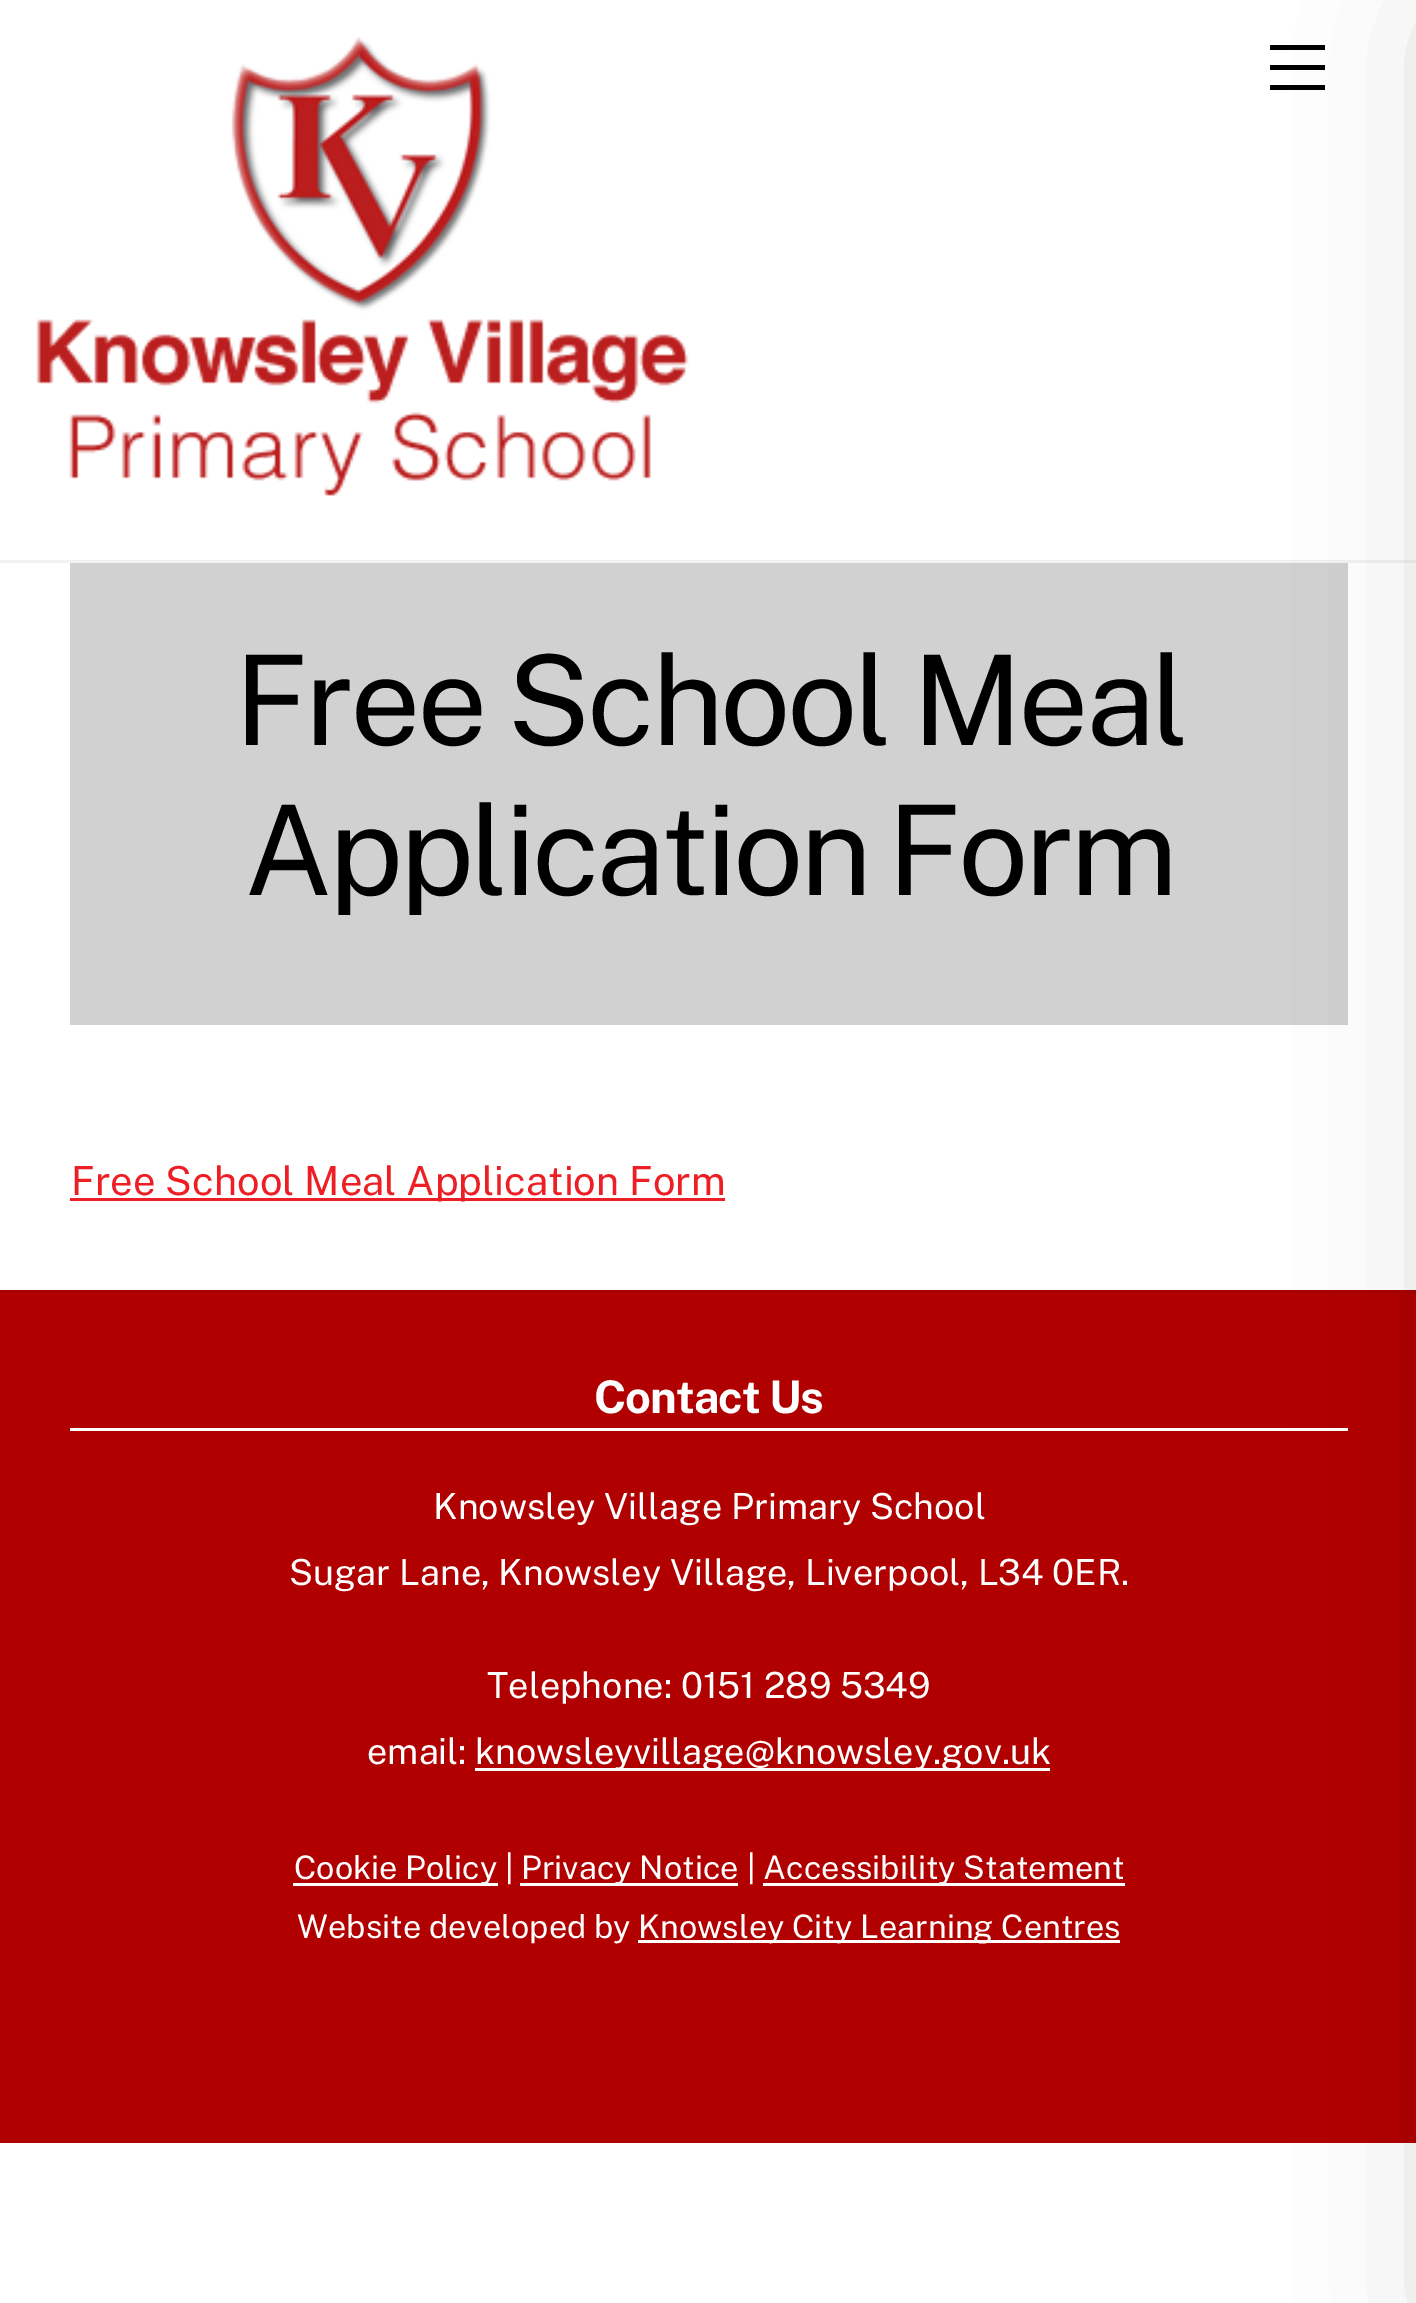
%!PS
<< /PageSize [1416 2303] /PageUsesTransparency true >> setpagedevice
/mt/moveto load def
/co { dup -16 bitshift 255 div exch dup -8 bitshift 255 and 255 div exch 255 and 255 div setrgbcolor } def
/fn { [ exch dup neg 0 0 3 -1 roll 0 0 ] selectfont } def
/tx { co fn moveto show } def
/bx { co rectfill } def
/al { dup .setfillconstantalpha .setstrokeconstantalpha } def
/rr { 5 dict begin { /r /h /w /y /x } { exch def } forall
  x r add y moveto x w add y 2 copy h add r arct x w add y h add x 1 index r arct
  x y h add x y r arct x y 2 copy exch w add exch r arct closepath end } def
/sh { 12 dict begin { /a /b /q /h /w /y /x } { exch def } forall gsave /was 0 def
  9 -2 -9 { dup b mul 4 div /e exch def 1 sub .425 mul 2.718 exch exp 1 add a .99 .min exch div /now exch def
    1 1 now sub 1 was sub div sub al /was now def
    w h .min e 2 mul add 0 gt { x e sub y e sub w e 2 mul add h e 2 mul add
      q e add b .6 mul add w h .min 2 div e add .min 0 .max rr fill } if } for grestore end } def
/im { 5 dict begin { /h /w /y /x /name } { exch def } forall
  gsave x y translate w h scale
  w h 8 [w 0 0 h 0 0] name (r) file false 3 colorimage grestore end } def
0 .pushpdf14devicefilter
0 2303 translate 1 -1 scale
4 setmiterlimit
0 0 1416 2303 16#FFFFFF bx
0 560 1416 3 16#F2F2F2 bx
(media/1.raw) 36 37 653 459 im
1270 85 55 5 16#000000 bx
1270 45 55 5 16#000000 bx
1270 65 55 5 16#000000 bx
70 563 1278 462 16#D1D1D1 bx
70 1198 655 3 16#ED1E24 bx
0 1293 1416 850 16#B10000 bx
0 1290 1416 3 16#A80000 bx
70 1428 1278 3 16#FFFFFF bx
475 1768 575 3 16#FFFFFF bx
293 1883 205 3 16#FFFFFF bx
520 1883 218 3 16#FFFFFF bx
763 1883 362 3 16#FFFFFF bx
638 1940 482 3 16#FFFFFF bx
16#000000 co
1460 25 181 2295 0 75 .2 sh
/PublicSans-Regular 125 fn
234 745 mt -3 0 32 -3.75 0 (Free School Meal) awidthshow
244 895 mt -8 0 32 -3.75 0 (Application Form) awidthshow
(Free School Meal Application Form) 71 1195 /PublicSans-Regular 40 16#ED1E24 tx
/PublicSans-Bold 45 fn
16#FFFFFF co
594 1413 mt -1 0 (Contact Us) ashow
(Knowsley Village Primary School) 433 1519 /PublicSans-Regular 36 16#FFFFFF tx
(Sugar Lane, Knowsley Village, Liverpool, L34 0ER.) 289 1585 /PublicSans-Regular 36 16#FFFFFF tx
(Telephone: 0151 289 5349) 487 1698 /PublicSans-Regular 36 16#FFFFFF tx
(email:) 367 1764 /PublicSans-Regular 36 16#FFFFFF tx
(knowsleyvillage@knowsley.gov.uk) 475 1764 /PublicSans-Regular 36 16#FFFFFF tx
(Cookie Policy |) 294 1879 /PublicSans-Regular 32.4 16#FFFFFF tx
(Privacy Notice |) 521 1879 /PublicSans-Regular 32.4 16#FFFFFF tx
(Accessibility Statement) 763 1879 /PublicSans-Regular 32.4 16#FFFFFF tx
(Website developed by) 297 1938 /PublicSans-Regular 32.4 16#FFFFFF tx
(Knowsley City Learning Centres) 638 1938 /PublicSans-Regular 32.4 16#FFFFFF tx
.poppdf14devicefilter showpage
